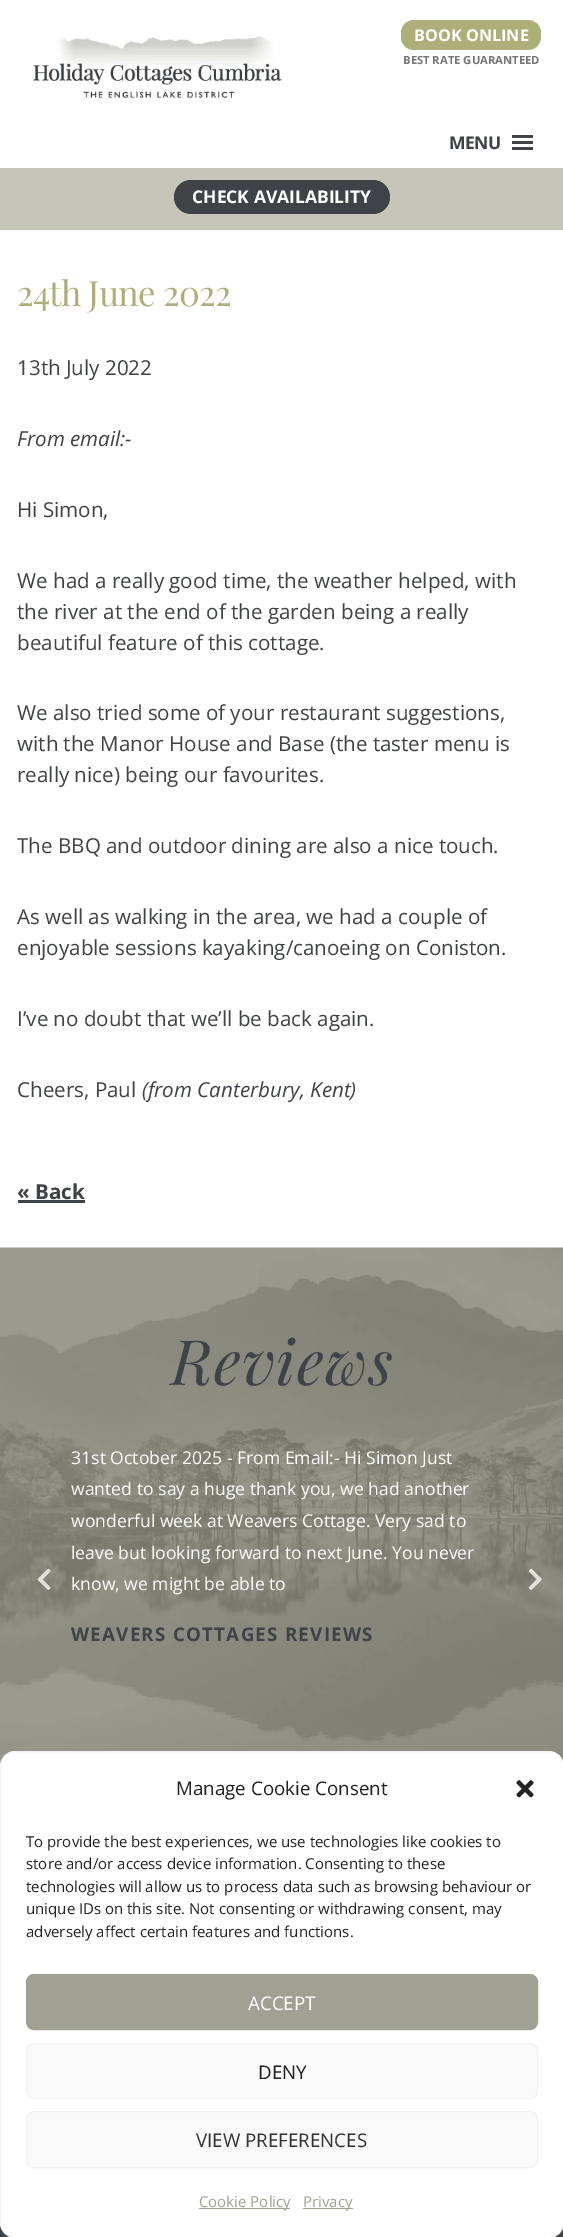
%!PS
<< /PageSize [563 2237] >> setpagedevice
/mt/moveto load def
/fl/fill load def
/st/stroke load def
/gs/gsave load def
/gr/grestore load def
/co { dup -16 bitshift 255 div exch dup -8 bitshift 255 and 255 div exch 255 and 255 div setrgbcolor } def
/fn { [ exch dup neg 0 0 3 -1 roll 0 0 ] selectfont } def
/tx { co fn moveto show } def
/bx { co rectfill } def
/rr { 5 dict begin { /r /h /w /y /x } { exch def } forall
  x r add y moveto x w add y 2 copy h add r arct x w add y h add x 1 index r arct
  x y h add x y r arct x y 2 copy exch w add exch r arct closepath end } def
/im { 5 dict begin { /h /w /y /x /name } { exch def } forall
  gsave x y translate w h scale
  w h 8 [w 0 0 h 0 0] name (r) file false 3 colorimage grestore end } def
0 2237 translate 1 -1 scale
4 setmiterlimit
0 0 563 2237 16#FFFFFF bx
(media/1.raw) 33 36 249 63 im
16#AEAE78 co
401 20 140 30 13 rr fl
(media/2.raw) 512 135 21 15 im
0 168 563 62 16#C5C5B9 bx
16#3F4247 co
174 180 216 34 17 rr fl
18 1200 67 3 16#3F4247 bx
(media/3.raw) 0 1247 563 519 im
(media/4.raw) 37 1568 14 22 im
(media/5.raw) 528 1568 14 22 im
0 2223 563 14 16#3F4247 bx
16#FFFFFF co
.5 1751.5 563 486 14.5 rr gs fl gr
16#F2F2F2 co
st
(media/6.raw) 516 1780 18 18 im
16#A0A193 co
26.5 1974.5 511 55 7.5 rr gs fl gr
st
16#F9F9F9 co
26.5 2043.5 511 55 7.5 rr gs fl gr
16#F2F2F2 co
st
16#F9F9F9 co
26.5 2111.5 511 56 7.5 rr gs fl gr
16#F2F2F2 co
st
199 2208 91 1 16#A0A193 bx
303 2208 50 1 16#A0A193 bx
(BOOK ONLINE) 414 41 /OpenSans-Bold 16.25 16#FFFFFF tx
(BEST RATE GUARANTEED) 403 64 /OpenSans-Bold 11.25 16#767676 tx
/OpenSans-Bold 17.5 fn
16#3F4247 co
449 149 mt -.5 0 (MENU) ashow
(CHECK AVAILABILITY) 192 203 /OpenSans-Bold 17.5 16#FFFFFF tx
/PlayfairDisplay-Regular 34.75 fn
16#AEAE78 co
17 306 mt -.75 0 (24th June 2022) ashow
(13th July 2022) 17 375 /OpenSans-Regular 20.6 16#3F4247 tx
(From email:-) 17 446 /OpenSans-Italic 20.6 16#3F4247 tx
(Hi Simon,) 17 517 /OpenSans-Regular 20.6 16#3F4247 tx
(We had a really good time, the weather helped, with) 17 588 /OpenSans-Regular 20.6 16#3F4247 tx
(the river at the end of the garden being a really) 17 619 /OpenSans-Regular 20.6 16#3F4247 tx
(beautiful feature of this cottage.) 17 650 /OpenSans-Regular 20.6 16#3F4247 tx
(We also tried some of your restaurant suggestions,) 17 720 /OpenSans-Regular 20.6 16#3F4247 tx
(with the Manor House and Base \(the taster menu is) 17 751 /OpenSans-Regular 20.6 16#3F4247 tx
(really nice\) being our favourites.) 17 782 /OpenSans-Regular 20.6 16#3F4247 tx
(The BBQ and outdoor dining are also a nice touch.) 17 853 /OpenSans-Regular 20.6 16#3F4247 tx
(As well as walking in the area, we had a couple of) 17 924 /OpenSans-Regular 20.6 16#3F4247 tx
(enjoyable sessions kayaking/canoeing on Coniston.) 17 955 /OpenSans-Regular 20.6 16#3F4247 tx
(I’ve no doubt that we’ll be back again.) 17 1026 /OpenSans-Regular 20.6 16#3F4247 tx
(Cheers, Paul) 17 1097 /OpenSans-Regular 20.6 16#3F4247 tx
(\(from Canterbury, Kent\)) 142 1097 /OpenSans-Italic 20.6 16#3F4247 tx
(« Back) 17 1199 /OpenSans-Bold 20.6 16#3F4247 tx
/PlayfairDisplay-Italic 62.5 fn
171 1385 mt 1.25 0 (Reviews) ashow
(31st October 2025 - From Email:- Hi Simon Just) 71 1464 /OpenSans-Regular 17.6 16#FFFFFF tx
(wanted to say a huge thank you, we had another) 71 1495 /OpenSans-Regular 17.6 16#FFFFFF tx
(wonderful week at Weavers Cottage. Very sad to) 71 1527 /OpenSans-Regular 17.6 16#FFFFFF tx
(leave but looking forward to next June. You never) 71 1559 /OpenSans-Regular 17.6 16#FFFFFF tx
(know, we might be able to) 71 1590 /OpenSans-Regular 17.6 16#FFFFFF tx
/OpenSans-Bold 18.75 fn
16#3F4247 co
71 1641 mt 1.25 0 (WEAVERS COTTAGES REVIEWS) ashow
(Manage Cookie Consent) 176 1795 /OpenSans-Regular 18.75 16#222222 tx
(To provide the best experiences, we use technologies like cookies to) 26 1847 /OpenSans-Regular 15 16#222222 tx
(store and/or access device information. Consenting to these) 26 1869 /OpenSans-Regular 15 16#222222 tx
(technologies will allow us to process data such as browsing behaviour or) 26 1892 /OpenSans-Regular 15 16#222222 tx
(unique IDs on this site. Not consenting or withdrawing consent, may) 26 1914 /OpenSans-Regular 15 16#222222 tx
(adversely affect certain features and functions.) 26 1937 /OpenSans-Regular 15 16#222222 tx
(ACCEPT) 248 2010 /OpenSans-Regular 18.75 16#FFFFFF tx
(DENY) 258 2079 /OpenSans-Regular 18.75 16#222222 tx
(VIEW PREFERENCES) 196 2147 /OpenSans-Regular 18.75 16#333333 tx
(Cookie Policy) 199 2207 /OpenSans-Regular 15 16#A0A193 tx
(Privacy) 303 2207 /OpenSans-Regular 15 16#A0A193 tx
showpage
